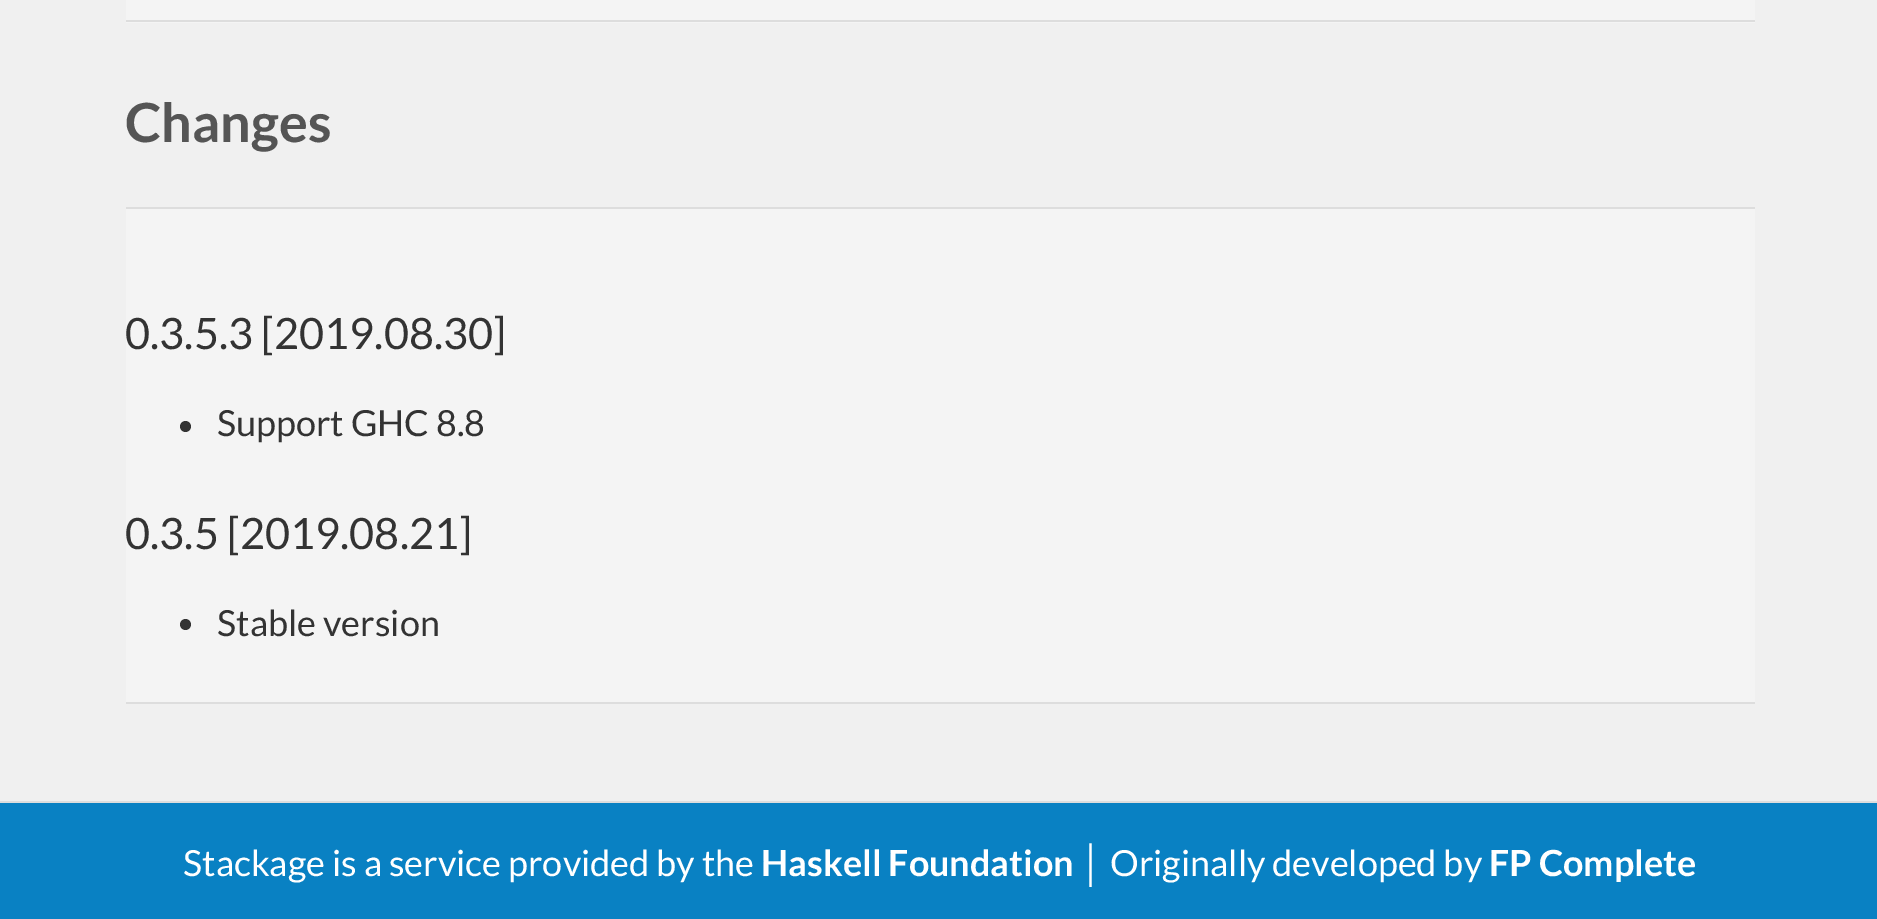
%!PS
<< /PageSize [1877 919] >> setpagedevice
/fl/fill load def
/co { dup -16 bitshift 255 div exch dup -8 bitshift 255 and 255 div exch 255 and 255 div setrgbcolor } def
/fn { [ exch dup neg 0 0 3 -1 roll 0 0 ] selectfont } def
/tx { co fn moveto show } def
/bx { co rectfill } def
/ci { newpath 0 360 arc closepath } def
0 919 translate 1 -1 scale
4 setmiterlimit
0 0 1877 919 16#F0F0F0 bx
126 0 1629 23 16#F4F4F4 bx
126 20 1629 2 16#DDDDDD bx
126 209 1629 493 16#F4F4F4 bx
126 207 1629 2 16#DDDDDD bx
126 702 1629 2 16#DDDDDD bx
16#333333 co
185.5 426.5 5.5 ci fl
185.5 624.5 5.5 ci fl
0 803 1877 116 16#0981C3 bx
0 801 1877 2 16#DDDDDD bx
(Changes) 125 142 /Lato-Bold 54 16#555555 tx
(0.3.5.3 [2019.08.30]) 125 349 /Lato-Regular 43.25 16#333333 tx
(Support GHC 8.8) 217 436 /Lato-Regular 36 16#333333 tx
(0.3.5 [2019.08.21]) 125 549 /Lato-Regular 43.25 16#333333 tx
(Stable version) 217 636 /Lato-Regular 36 16#333333 tx
(Stackage is a service provided by the) 183 876 /Lato-Regular 36 16#FFFFFF tx
(Haskell Foundation) 761 876 /Lato-Bold 36 16#FFFFFF tx
(│) 1081 876 /LiberationSans-Regular 36 16#FFFFFF tx
(Originally developed by) 1110 876 /Lato-Regular 36 16#FFFFFF tx
(FP Complete) 1489 876 /Lato-Bold 36 16#FFFFFF tx
showpage
